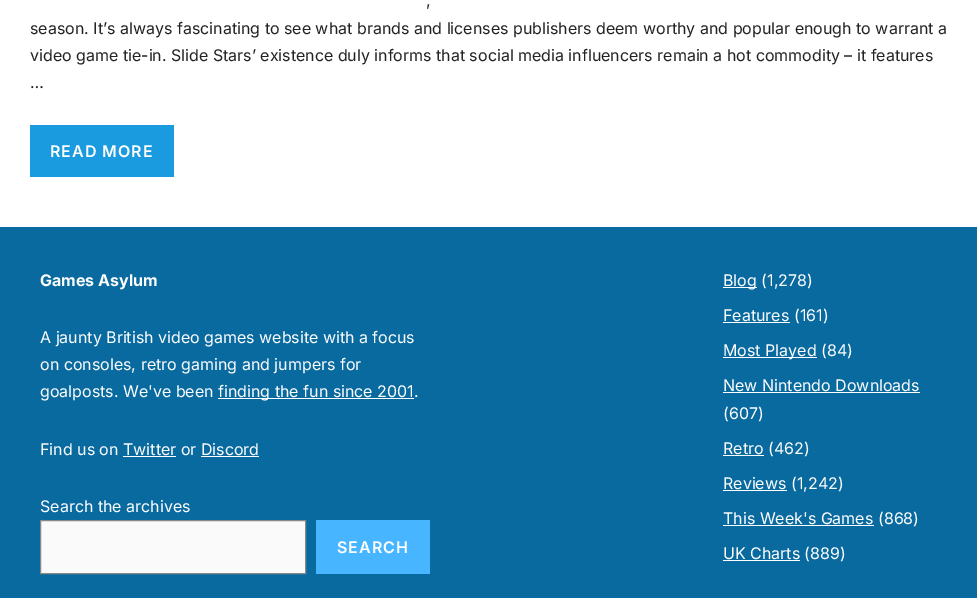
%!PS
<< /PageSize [977 598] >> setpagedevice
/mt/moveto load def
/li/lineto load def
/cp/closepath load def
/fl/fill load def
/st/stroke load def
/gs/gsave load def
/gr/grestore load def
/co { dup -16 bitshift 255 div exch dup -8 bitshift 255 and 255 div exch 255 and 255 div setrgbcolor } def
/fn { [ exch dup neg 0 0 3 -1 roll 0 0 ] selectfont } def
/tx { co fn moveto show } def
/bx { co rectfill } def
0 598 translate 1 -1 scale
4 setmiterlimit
0 0 977 598 16#FFFFFF bx
30 125 144 52 16#1A9ADF bx
0 227 977 371 16#096AA0 bx
218 398 196 1 16#FFFFFF bx
123 456 53 1 16#FFFFFF bx
201 456 58 1 16#FFFFFF bx
16#FAFAFA co
40.5 520.5 mt 305.5 520.5 li 305.5 573.5 li 40.5 573.5 li cp gs fl gr
16#888888 co
st
316 520 114 54 16#47B5FF bx
723 287 34 1 16#FFFFFF bx
723 322 67 1 16#FFFFFF bx
723 357 94 1 16#FFFFFF bx
723 392 197 1 16#FFFFFF bx
723 455 41 1 16#FFFFFF bx
723 490 64 1 16#FFFFFF bx
723 525 151 1 16#FFFFFF bx
723 560 77 1 16#FFFFFF bx
(,) 426 6 /Inter-Regular 16 16#222222 tx
(season. It’s always fascinating to see what brands and licenses publishers deem worthy and popular enough to warrant a) 30 34 /Inter-Regular 16 16#222222 tx
(video game tie-in. Slide Stars’ existence duly informs that social media influencers remain a hot commodity – it features) 30 61 /Inter-Regular 16 16#222222 tx
(…) 30 88 /Inter-Regular 16 16#222222 tx
/Inter-SemiBold 16 fn
16#FFFFFF co
50 157 mt 1 0 (READ MORE) ashow
(Games Asylum) 40 286 /Inter-Bold 16 16#FFFFFF tx
(A jaunty British video games website with a focus) 40 343 /Inter-Regular 16 16#FFFFFF tx
(on consoles, retro gaming and jumpers for) 40 370 /Inter-Regular 16 16#FFFFFF tx
(goalposts. We've been) 40 397 /Inter-Regular 16 16#FFFFFF tx
(finding the fun since 2001.) 218 397 /Inter-Regular 16 16#FFFFFF tx
(Find us on Twitter or Discord) 40 455 /Inter-Regular 16 16#FFFFFF tx
(Search the archives) 40 512 /Inter-Regular 16 16#FFFFFF tx
/Inter-SemiBold 16 fn
337 553 mt 1 0 (SEARCH) ashow
(Blog \(1,278\)) 723 286 /Inter-Regular 16 16#FFFFFF tx
(Features \(161\)) 723 321 /Inter-Regular 16 16#FFFFFF tx
(Most Played \(84\)) 723 356 /Inter-Regular 16 16#FFFFFF tx
(New Nintendo Downloads) 723 391 /Inter-Regular 16 16#FFFFFF tx
(\(607\)) 723 419 /Inter-Regular 16 16#FFFFFF tx
(Retro \(462\)) 723 454 /Inter-Regular 16 16#FFFFFF tx
(Reviews \(1,242\)) 723 489 /Inter-Regular 16 16#FFFFFF tx
(This Week's Games \(868\)) 723 524 /Inter-Regular 16 16#FFFFFF tx
(UK Charts \(889\)) 723 559 /Inter-Regular 16 16#FFFFFF tx
showpage
